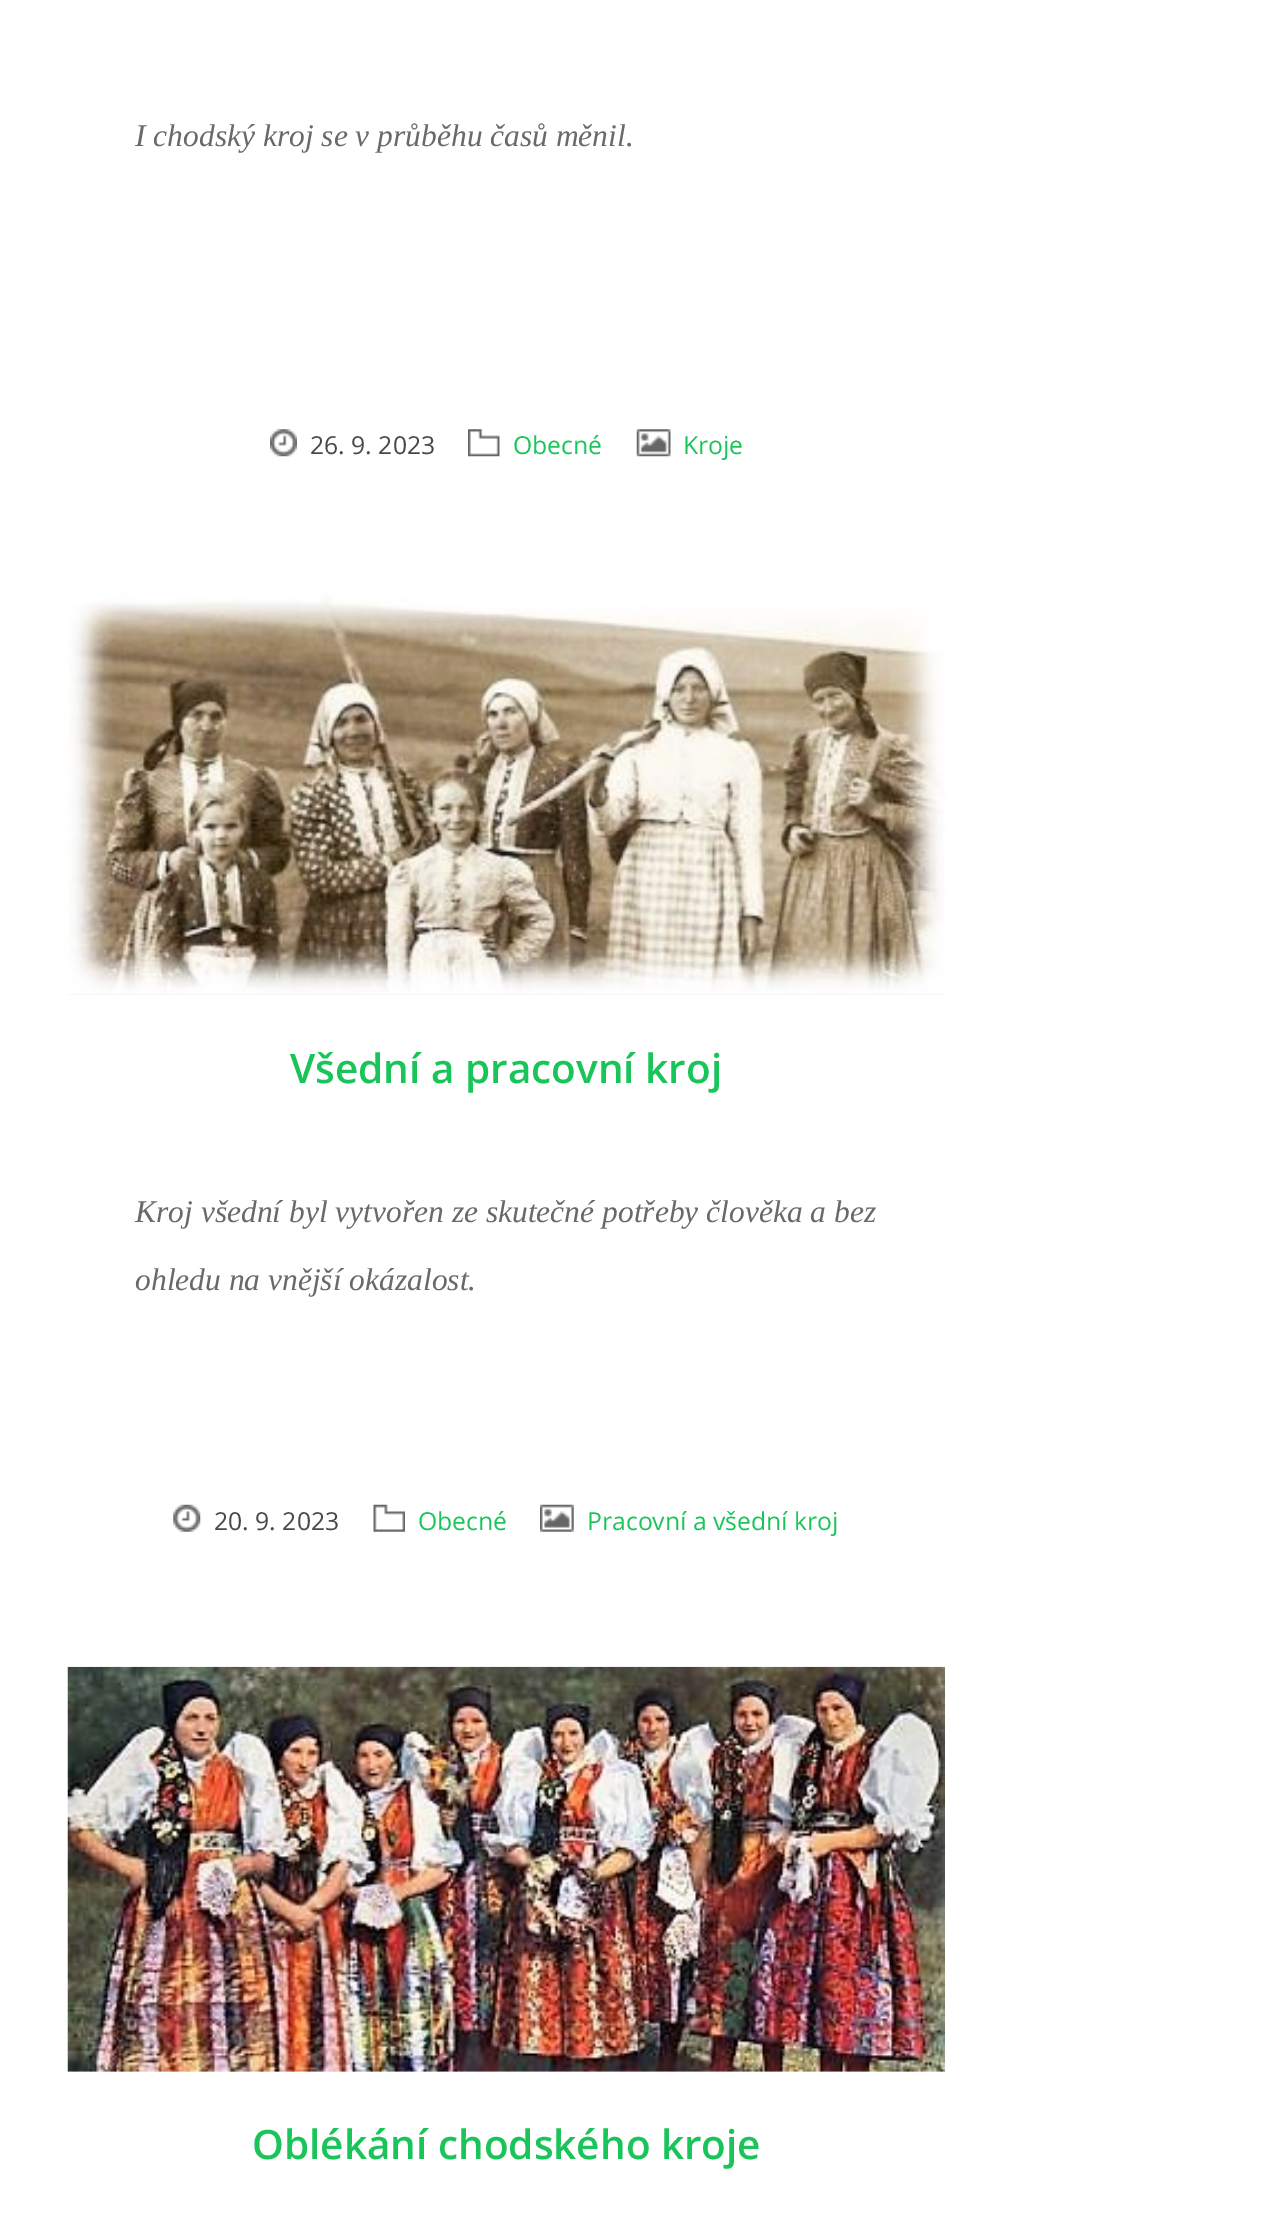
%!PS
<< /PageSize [1276 2227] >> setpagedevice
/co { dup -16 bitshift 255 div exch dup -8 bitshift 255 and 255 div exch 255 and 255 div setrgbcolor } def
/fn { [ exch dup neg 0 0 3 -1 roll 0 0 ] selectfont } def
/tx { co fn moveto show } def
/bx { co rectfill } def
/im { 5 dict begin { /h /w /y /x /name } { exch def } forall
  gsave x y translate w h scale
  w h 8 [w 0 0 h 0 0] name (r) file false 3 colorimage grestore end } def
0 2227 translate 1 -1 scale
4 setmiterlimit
0 0 1276 2227 16#FFFFFF bx
(media/1.raw) 270 429 27 28 im
(media/2.raw) 468 429 32 28 im
(media/3.raw) 636 429 35 28 im
68 994 877 1 16#F6F6F6 bx
(media/4.raw) 68 592 877 402 im
(media/5.raw) 173 1504 28 28 im
(media/6.raw) 373 1504 32 28 im
(media/7.raw) 540 1504 34 28 im
68 2071 877 1 16#F6F6F6 bx
(media/8.raw) 67 1666 878 406 im
(I chodský kroj se v průběhu časů měnil.) 135 146 /LiberationSerif-Italic 31.5 16#696969 tx
(26. 9. 2023) 310 454 /OpenSans-Regular 24.75 16#484848 tx
(Obecné) 513 454 /OpenSans-Regular 24.75 16#19C559 tx
(Kroje) 683 454 /OpenSans-Regular 24.75 16#19C559 tx
(Všední a pracovní kroj) 290 1083 /OpenSans-SemiBold 40.5 16#19C559 tx
(Kroj všední byl vytvořen ze skutečné potřeby člověka a bez) 135 1222 /LiberationSerif-Italic 31.5 16#696969 tx
(ohledu na vnější okázalost.) 135 1290 /LiberationSerif-Italic 31.5 16#696969 tx
(20. 9. 2023) 214 1530 /OpenSans-Regular 24.75 16#484848 tx
(Obecné) 418 1530 /OpenSans-Regular 24.75 16#19C559 tx
(Pracovní a všední kroj) 587 1530 /OpenSans-Regular 24.75 16#19C559 tx
(Oblékání chodského kroje) 252 2159 /OpenSans-SemiBold 40.5 16#19C559 tx
showpage
